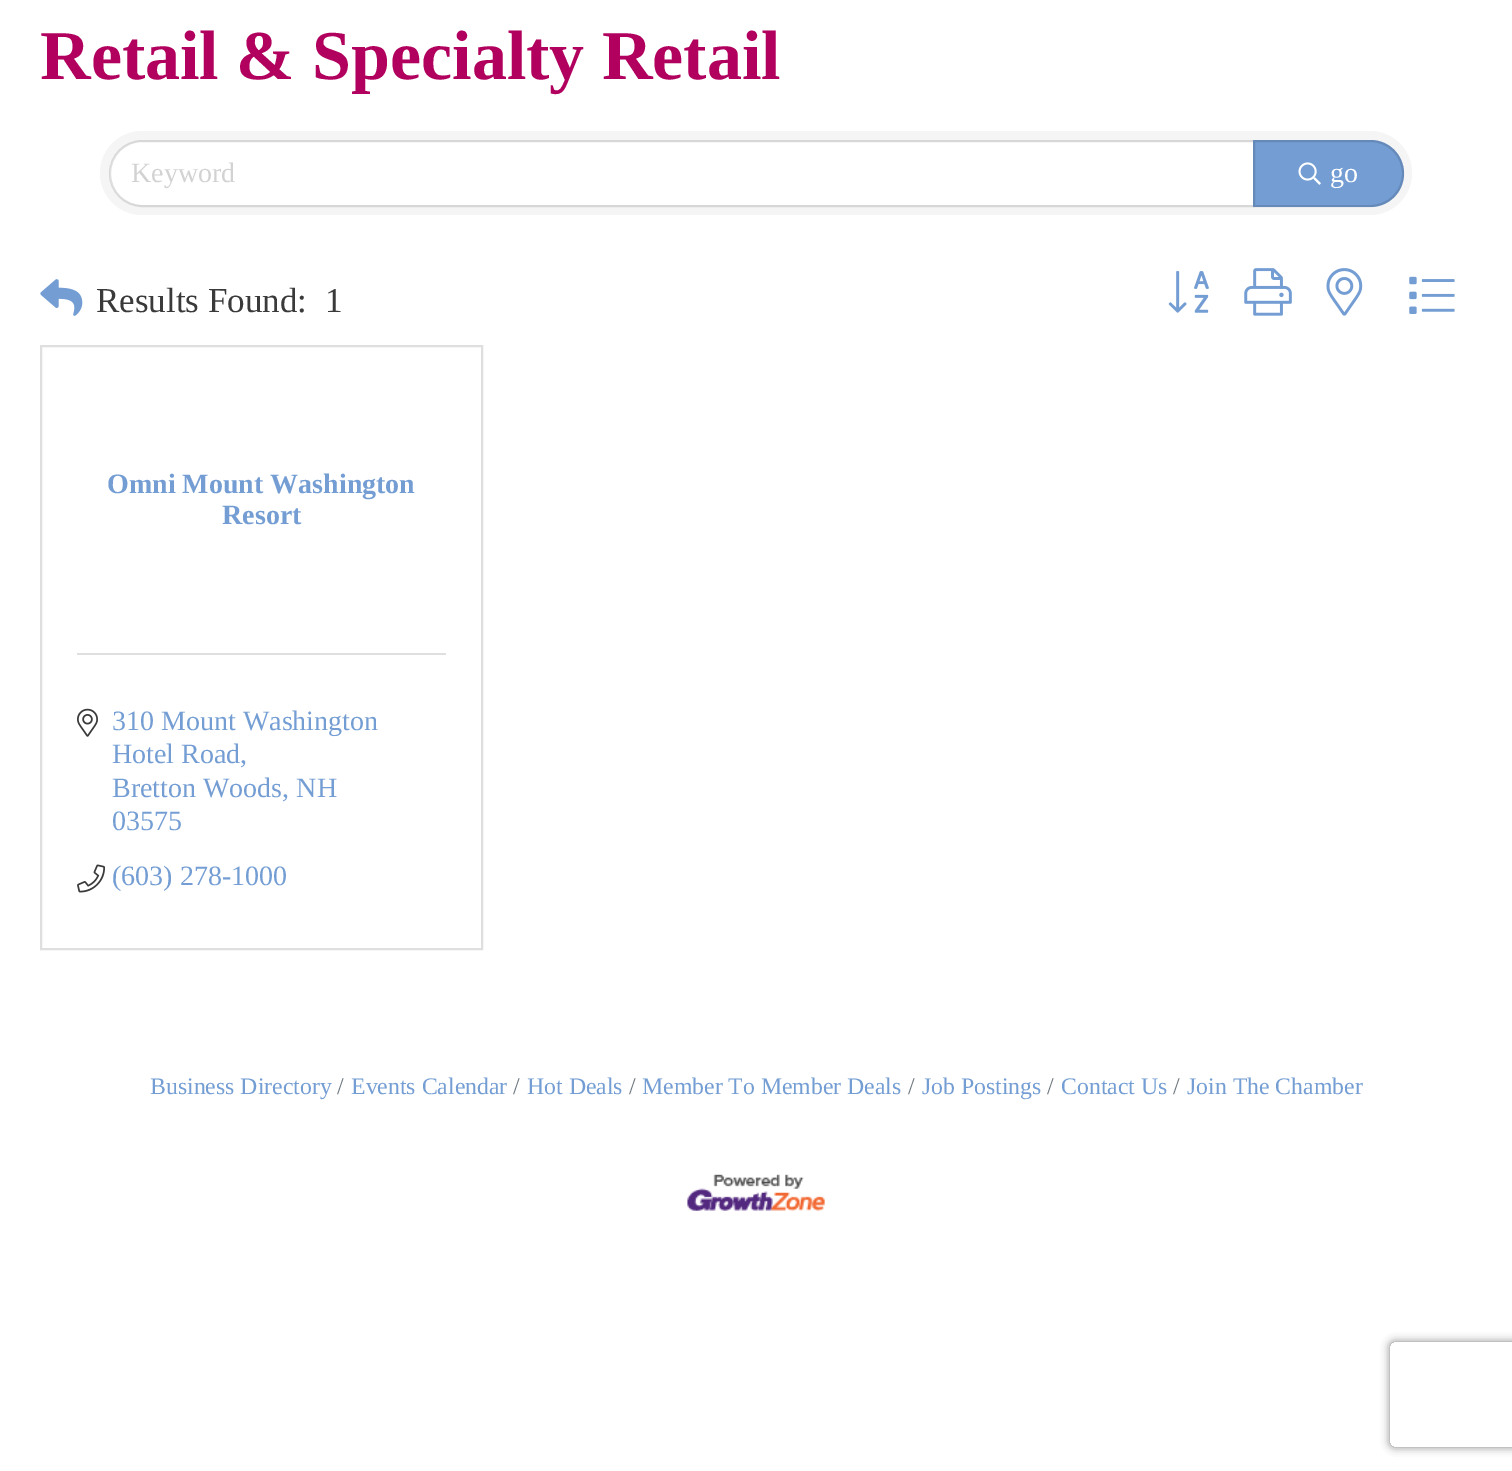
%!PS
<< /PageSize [1512 1471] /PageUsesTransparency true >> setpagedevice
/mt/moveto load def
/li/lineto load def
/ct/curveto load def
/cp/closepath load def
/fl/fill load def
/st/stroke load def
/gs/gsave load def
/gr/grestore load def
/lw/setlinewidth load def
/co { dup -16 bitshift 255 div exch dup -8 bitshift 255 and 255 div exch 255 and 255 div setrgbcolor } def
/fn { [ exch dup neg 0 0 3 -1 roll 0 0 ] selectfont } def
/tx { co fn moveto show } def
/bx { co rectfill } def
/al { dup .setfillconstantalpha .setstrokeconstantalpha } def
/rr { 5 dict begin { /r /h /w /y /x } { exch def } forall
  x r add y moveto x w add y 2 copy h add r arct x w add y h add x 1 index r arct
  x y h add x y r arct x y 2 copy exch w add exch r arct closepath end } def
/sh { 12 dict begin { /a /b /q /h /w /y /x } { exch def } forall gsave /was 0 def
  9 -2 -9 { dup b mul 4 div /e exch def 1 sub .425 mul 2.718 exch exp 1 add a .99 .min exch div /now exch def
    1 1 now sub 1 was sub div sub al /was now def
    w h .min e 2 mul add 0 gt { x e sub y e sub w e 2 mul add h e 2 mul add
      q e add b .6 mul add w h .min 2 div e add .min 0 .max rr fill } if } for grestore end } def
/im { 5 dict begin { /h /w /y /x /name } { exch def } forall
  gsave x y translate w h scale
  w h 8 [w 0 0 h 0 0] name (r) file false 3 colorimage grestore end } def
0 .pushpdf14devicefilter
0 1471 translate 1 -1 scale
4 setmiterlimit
0 0 1512 1471 16#FFFFFF bx
16#F5F5F5 co
100 131 1312 84 42 rr fl
16#FFFFFF co
141.5 142 mt 1253 142 li 1253 205 li 141.5 205 li 124 205 110 191 110 173.5 ct 110 156 124 142 141.5 142 ct cp fl
0.12 al
16#000000 co
2 lw
142.5 141 mt 1254 141 li 1254 206 li 142.5 206 li 124.5 206 110 191.5 110 173.5 ct 110 155.5 124.5 141 142.5 141 ct cp st
1 al
16#739DD3 co
1253 140 mt 1370.5 140 li 1389 140 1404 155 1404 173.5 ct 1404 192 1389 207 1370.5 207 ct 1253 207 li cp fl
0.12 al
16#000000 co
1254 141 mt 1370.5 141 li 1388.5 141 1403 155.5 1403 173.5 ct 1403 191.5 1388.5 206 1370.5 206 ct 1254 206 li cp st
1 al
(media/1.raw) 1298 162 23 23 im
(media/2.raw) 40 279 43 37 im
(media/3.raw) 1168 271 41 42 im
(media/4.raw) 1244 268 48 48 im
(media/5.raw) 1326 268 37 48 im
(media/6.raw) 1409 276 46 38 im
16#DFDFDF co
41 346 441 603 rectstroke
77 653 369 2 16#DFDFDF bx
(media/7.raw) 77 708 21 29 im
(media/8.raw) 77 864 29 29 im
(media/9.raw) 687 1174 138 37 im
gs
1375 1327 mt 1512 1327 li 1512 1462 li 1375 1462 li cp 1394 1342 mt 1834 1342 li 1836 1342 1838 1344 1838 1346 ct 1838 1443 li 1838 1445 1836 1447 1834 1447 ct 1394 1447 li 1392 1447 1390 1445 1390 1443 ct 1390 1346 li 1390 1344 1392 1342 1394 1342 ct cp eoclip newpath
16#808080 co
1390 1342 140 105 4 4.5 1 sh
gr
(Retail & Specialty Retail) 40 79 /LiberationSerif-Bold 70 16#B1005D tx
(Keyword) 131 182 /LiberationSerif-Regular 28 16#D2D2D2 tx
(go) 1330 182 /LiberationSerif-Regular 28 16#FFFFFF tx
(Results Found:) 96 312 /LiberationSerif-Regular 35 16#3A3A3A tx
(1) 325 312 /LiberationSerif-Regular 35 16#3A3A3A tx
(Omni Mount Washington) 107 493 /LiberationSerif-Bold 28 16#739DD3 tx
(Resort) 222 524 /LiberationSerif-Bold 28 16#739DD3 tx
(310 Mount Washington) 112 730 /LiberationSerif-Regular 28 16#739DD3 tx
(Hotel Road,) 112 763 /LiberationSerif-Regular 28 16#739DD3 tx
(Bretton Woods, NH) 112 797 /LiberationSerif-Regular 28 16#739DD3 tx
(03575) 112 830 /LiberationSerif-Regular 28 16#739DD3 tx
(\(603\) 278-1000) 112 885 /LiberationSerif-Regular 28 16#739DD3 tx
(Business Directory) 150 1094 /LiberationSerif-Regular 23.75 16#739DD3 tx
(/) 337 1094 /LiberationSerif-Regular 23.75 16#6C757D tx
(Events Calendar) 351 1094 /LiberationSerif-Regular 23.75 16#739DD3 tx
(/) 513 1094 /LiberationSerif-Regular 23.75 16#6C757D tx
(Hot Deals) 527 1094 /LiberationSerif-Regular 23.75 16#739DD3 tx
(/) 629 1094 /LiberationSerif-Regular 23.75 16#6C757D tx
(Member To Member Deals) 642 1094 /LiberationSerif-Regular 23.75 16#739DD3 tx
(/) 908 1094 /LiberationSerif-Regular 23.75 16#6C757D tx
(Job Postings) 922 1094 /LiberationSerif-Regular 23.75 16#739DD3 tx
(/) 1047 1094 /LiberationSerif-Regular 23.75 16#6C757D tx
(Contact Us) 1061 1094 /LiberationSerif-Regular 23.75 16#739DD3 tx
(/) 1173 1094 /LiberationSerif-Regular 23.75 16#6C757D tx
(Join The Chamber) 1187 1094 /LiberationSerif-Regular 23.75 16#739DD3 tx
.poppdf14devicefilter showpage
